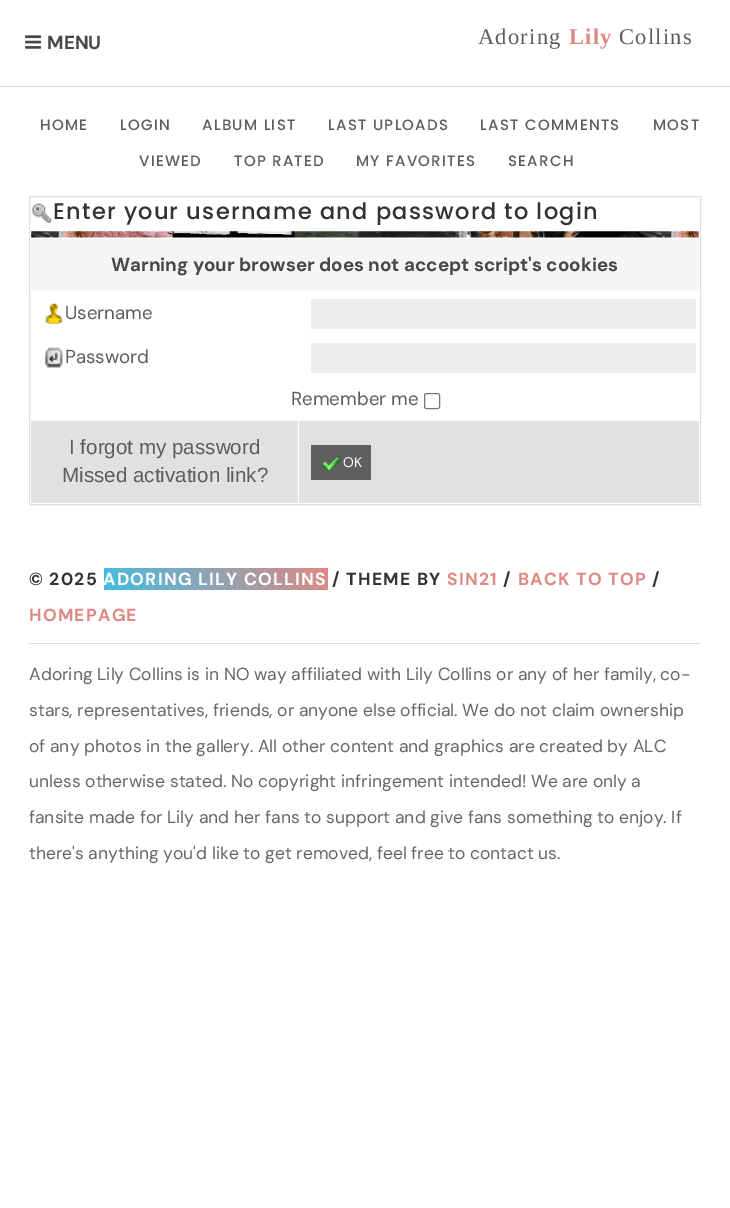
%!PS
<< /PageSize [730 1208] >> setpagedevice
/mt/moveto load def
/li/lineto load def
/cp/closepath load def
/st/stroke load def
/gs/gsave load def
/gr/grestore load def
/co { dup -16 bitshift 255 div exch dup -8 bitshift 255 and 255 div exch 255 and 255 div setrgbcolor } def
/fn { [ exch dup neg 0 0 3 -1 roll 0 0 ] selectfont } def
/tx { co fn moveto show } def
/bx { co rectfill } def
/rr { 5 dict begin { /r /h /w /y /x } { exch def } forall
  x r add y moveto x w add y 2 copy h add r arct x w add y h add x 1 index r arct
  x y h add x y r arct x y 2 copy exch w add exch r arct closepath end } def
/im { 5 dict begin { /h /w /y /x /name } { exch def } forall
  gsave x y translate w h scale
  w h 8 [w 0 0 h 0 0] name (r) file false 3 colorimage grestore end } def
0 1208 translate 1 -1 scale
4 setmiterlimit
0 0 730 1208 16#FFFFFF bx
0 86 730 1 16#DFDFDF bx
(media/1.raw) 25 35 17 14 im
16#E0E0E0 co
29.5 196.5 671 308 rectstroke
(media/2.raw) 31 231 668 7 im
(media/3.raw) 32 203 20 20 im
31 239 668 52 16#F5F5F5 bx
(media/4.raw) 45 303 18 21 im
311 299 385 30 16#EEEEEE bx
(media/5.raw) 44 347 19 21 im
311 343 385 30 16#EEEEEE bx
16#767676 co
424.5 393.5 15 15 2 rr st
31 421 267 82 16#E1E1E1 bx
299 421 400 82 16#E1E1E1 bx
311 445 60 35 16#5F5F5F bx
(media/6.raw) 321 456 21 16 im
gs 104 568 mt 328 568 li 328 590 li 104 590 li cp clip newpath
<< /ShadingType 2 /ColorSpace /DeviceRGB /Coords [127 630 304 527] /Extend [true true] /Function << /FunctionType 2 /Domain [0 1] /C0 [.271 .741 .878] /C1 [.871 .537 .514] /N 1 >> >> shfill gr
29 643 672 1 16#DFDFDF bx
(MENU) 47 49 /DMSans-Bold 18.75 16#474747 tx
/LiberationSerif-Regular 22.5 fn
16#5D5D5D co
478 44 mt 1.25 0 (Adoring) ashow
/LiberationSerif-Bold 22.5 fn
16#DE8983 co
569 44 mt 1.25 0 (Lily) ashow
/LiberationSerif-Regular 22.5 fn
16#5D5D5D co
619 44 mt 1.25 0 (Collins) ashow
/Poppins-Medium 15 fn
40 130 mt 1.25 0 (HOME) ashow
120 130 mt 1.25 0 (LOGIN) ashow
202 130 mt 1.25 0 (ALBUM LIST) ashow
328 130 mt 1.25 0 (LAST UPLOADS) ashow
480 130 mt 1.25 0 (LAST COMMENTS) ashow
653 130 mt 1.25 0 (MOST) ashow
139 166 mt 1.25 0 (VIEWED) ashow
234 166 mt 1.25 0 (TOP RATED) ashow
356 166 mt 1.25 0 (MY FAVORITES) ashow
508 166 mt 1.25 0 (SEARCH) ashow
/Poppins-Medium 22.5 fn
16#333333 co
53 219 mt 1.25 0 (Enter your username and password to login) ashow
(Warning your browser does not accept script's cookies) 111 271 /DMSans-Bold 18.75 16#474747 tx
(Username) 65 319 /DMSans-Regular 18.75 16#5D5D5D tx
(Password) 65 363 /DMSans-Regular 18.75 16#5D5D5D tx
(Remember me) 291 405 /DMSans-Regular 18.75 16#5D5D5D tx
(I forgot my password) 69 454 /LiberationSans-Regular 20.6 16#5D5D5D tx
(Missed activation link?) 62 482 /LiberationSans-Regular 20.6 16#5D5D5D tx
(OK) 343 467 /DMSans-Regular 14 16#FFFFFF tx
/DMSans-Bold 17.5 fn
16#333333 co
29 585 mt 1.25 0 (© 2025) ashow
16#FFFFFF co
103 585 mt 1.25 0 (ADORING LILY COLLINS) ashow
16#333333 co
332 585 mt 1.25 0 (/ THEME BY) ashow
16#DE8983 co
447 585 mt 1.25 0 (SIN21) ashow
16#333333 co
503 585 mt 1.25 0 (/) ashow
16#DE8983 co
518 585 mt 1.25 0 (BACK TO TOP) ashow
16#333333 co
652 585 mt 1.25 0 (/) ashow
16#DE8983 co
29 621 mt 1.25 0 (HOMEPAGE) ashow
(Adoring Lily Collins is in NO way affiliated with Lily Collins or any of her family, co-) 29 680 /DMSans-Regular 17.5 16#666666 tx
(stars, representatives, friends, or anyone else official. We do not claim ownership) 29 716 /DMSans-Regular 17.5 16#666666 tx
(of any photos in the gallery. All other content and graphics are created by ALC) 29 752 /DMSans-Regular 17.5 16#666666 tx
(unless otherwise stated. No copyright infringement intended! We are only a) 29 787 /DMSans-Regular 17.5 16#666666 tx
(fansite made for Lily and her fans to support and give fans something to enjoy. If) 29 823 /DMSans-Regular 17.5 16#666666 tx
(there's anything you'd like to get removed, feel free to contact us.) 29 859 /DMSans-Regular 17.5 16#666666 tx
showpage
